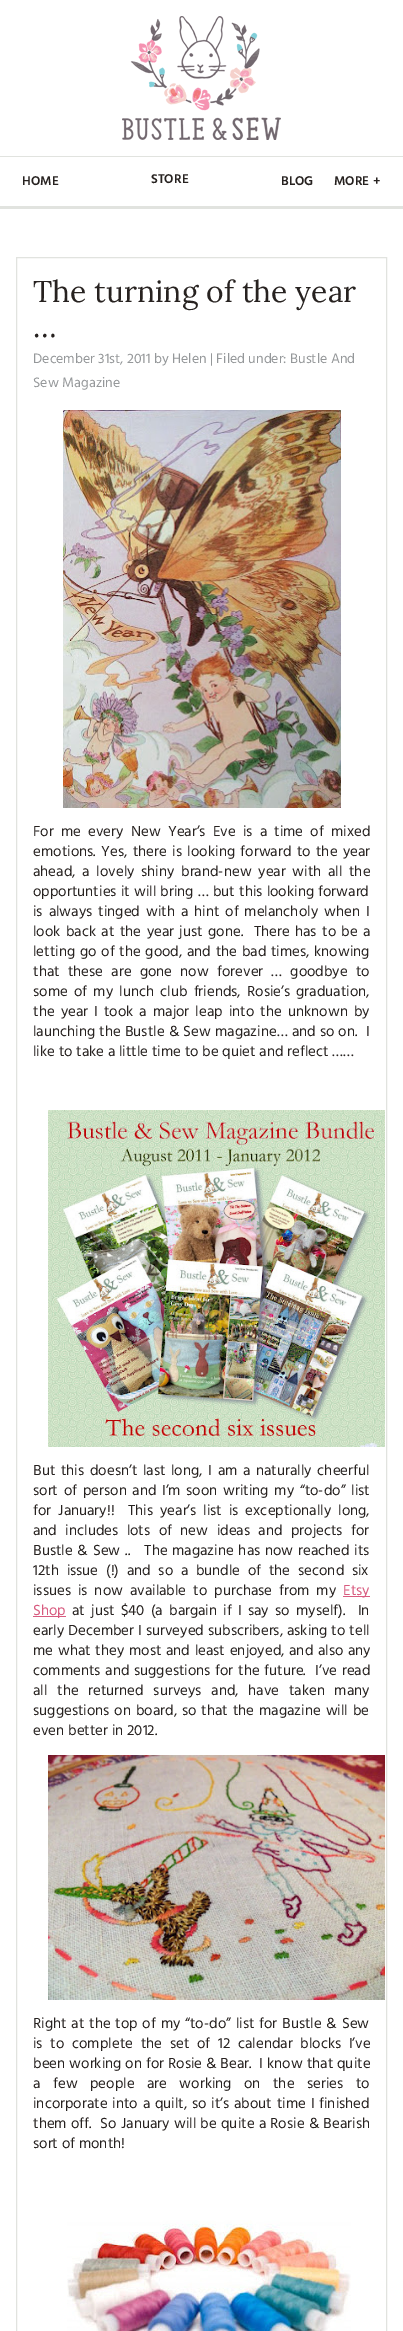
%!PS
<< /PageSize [403 2331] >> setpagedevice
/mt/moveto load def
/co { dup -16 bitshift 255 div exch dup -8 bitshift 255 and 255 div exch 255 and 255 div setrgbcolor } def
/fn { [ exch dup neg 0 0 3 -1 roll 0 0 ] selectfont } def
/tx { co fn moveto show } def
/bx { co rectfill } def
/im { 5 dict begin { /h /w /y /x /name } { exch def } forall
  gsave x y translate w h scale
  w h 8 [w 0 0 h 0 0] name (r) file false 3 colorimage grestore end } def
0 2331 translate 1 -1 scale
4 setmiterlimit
0 0 403 2331 16#FFFFFF bx
(media/1.raw) 122 16 159 124 im
0 156 403 1 16#E1E3DF bx
0 206 403 3 16#E1E3DF bx
16.5 257.5 370 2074 rectstroke
(media/2.raw) 63 410 278 398 im
(media/3.raw) 48 1110 337 337 im
343 1596 27 1 16#D85B7F bx
33 1616 33 1 16#D85B7F bx
(media/4.raw) 48 1755 337 245 im
(media/5.raw) 67 2220 284 111 im
(HOME) 22 185 /Hind-SemiBold 13 16#272220 tx
(STORE) 151 183 /Hind-SemiBold 13 16#272220 tx
(BLOG) 281 185 /Hind-SemiBold 13 16#272220 tx
(MORE +) 334 185 /Hind-SemiBold 13 16#272220 tx
(The turning of the year) 33 302 /Lora-Regular 30 16#272220 tx
(…) 33 337 /Lora-Regular 30 16#272220 tx
(December 31st, 2011 by Helen | Filed under: Bustle And) 33 363 /Hind-Regular 14 16#95989A tx
(Sew Magazine) 33 387 /Hind-Regular 14 16#95989A tx
/Hind-Regular 15 fn
16#272220 co
33 836 mt 3.5 0 32 (For me every New Year’s Eve is a time of mixed) widthshow
33 856 mt 1.75 0 32 (emotions. Yes, there is looking forward to the year) widthshow
33 876 mt 3 0 32 (ahead, a lovely shiny brand-new year with all the) widthshow
33 896 mt .5 0 32 (opportunties it will bring … but this looking forward) widthshow
33 916 mt 2.25 0 32 (is always tinged with a hint of melancholy when I) widthshow
33 936 mt 1.7 0 32 (look back at the year just gone.  There has to be a) widthshow
33 956 mt 1 0 32 (letting go of the good, and the bad times, knowing) widthshow
33 976 mt 4.5 0 32 (that these are gone now forever … goodbye to) widthshow
33 996 mt 2.5 0 32 (some of my lunch club friends, Rosie’s graduation,) widthshow
33 1016 mt 2.4 0 32 (the year I took a major leap into the unknown by) widthshow
33 1036 mt .5 0 32 (launching the Bustle & Sew magazine… and so on.  I) widthshow
(like to take a little time to be quiet and reflect ……) 33 1056 /Hind-Regular 15 16#272220 tx
33 1475 mt 2 0 32 (But this doesn’t last long, I am a naturally cheerful) widthshow
33 1495 mt 2 0 32 (sort of person and I’m soon writing my “to-do” list) widthshow
33 1515 mt 3.25 0 32 (for January!!  This year’s list is exceptionally long,) widthshow
33 1535 mt 4.75 0 32 (and includes lots of new ideas and projects for) widthshow
33 1555 mt 1.1 0 32 (Bustle & Sew ..   The magazine has now reached its) widthshow
33 1575 mt 4 0 32 (12th issue \(!\) and so a bundle of the second six) widthshow
33 1595 mt 3.25 0 32 (issues is now available to purchase from my) widthshow
(Etsy) 343 1595 /Hind-Regular 15 16#D85B7F tx
(Shop) 33 1615 /Hind-Regular 15 16#D85B7F tx
16#272220 co
72 1615 mt 2.6 0 32 (at just $40 \(a bargain if I say so myself\).  In) widthshow
33 1635 mt .25 0 32 (early December I surveyed subscribers, asking to tell) widthshow
33 1655 mt 1 0 32 (me what they most and least enjoyed, and also any) widthshow
33 1675 mt 1 0 32 (comments and suggestions for the future.  I’ve read) widthshow
33 1695 mt 6 0 32 (all the returned surveys and, have taken many) widthshow
33 1715 mt 1.25 0 32 (suggestions on board, so that the magazine will be) widthshow
(even better in 2012.) 33 1735 /Hind-Regular 15 16#272220 tx
33 2028 mt 1.1 0 32 (Right at the top of my “to-do” list for Bustle & Sew) widthshow
33 2048 mt 4 0 32 (is to complete the set of 12 calendar blocks I’ve) widthshow
33 2068 mt .25 0 32 (been working on for Rosie & Bear.  I know that quite) widthshow
33 2088 mt 8.75 0 32 (a few people are working on the series to) widthshow
33 2108 mt 1.1 0 32 (incorporate into a quilt, so it’s about time I finished) widthshow
33 2128 mt .6 0 32 (them off.  So January will be quite a Rosie & Bearish) widthshow
(sort of month!) 33 2148 /Hind-Regular 15 16#272220 tx
showpage
